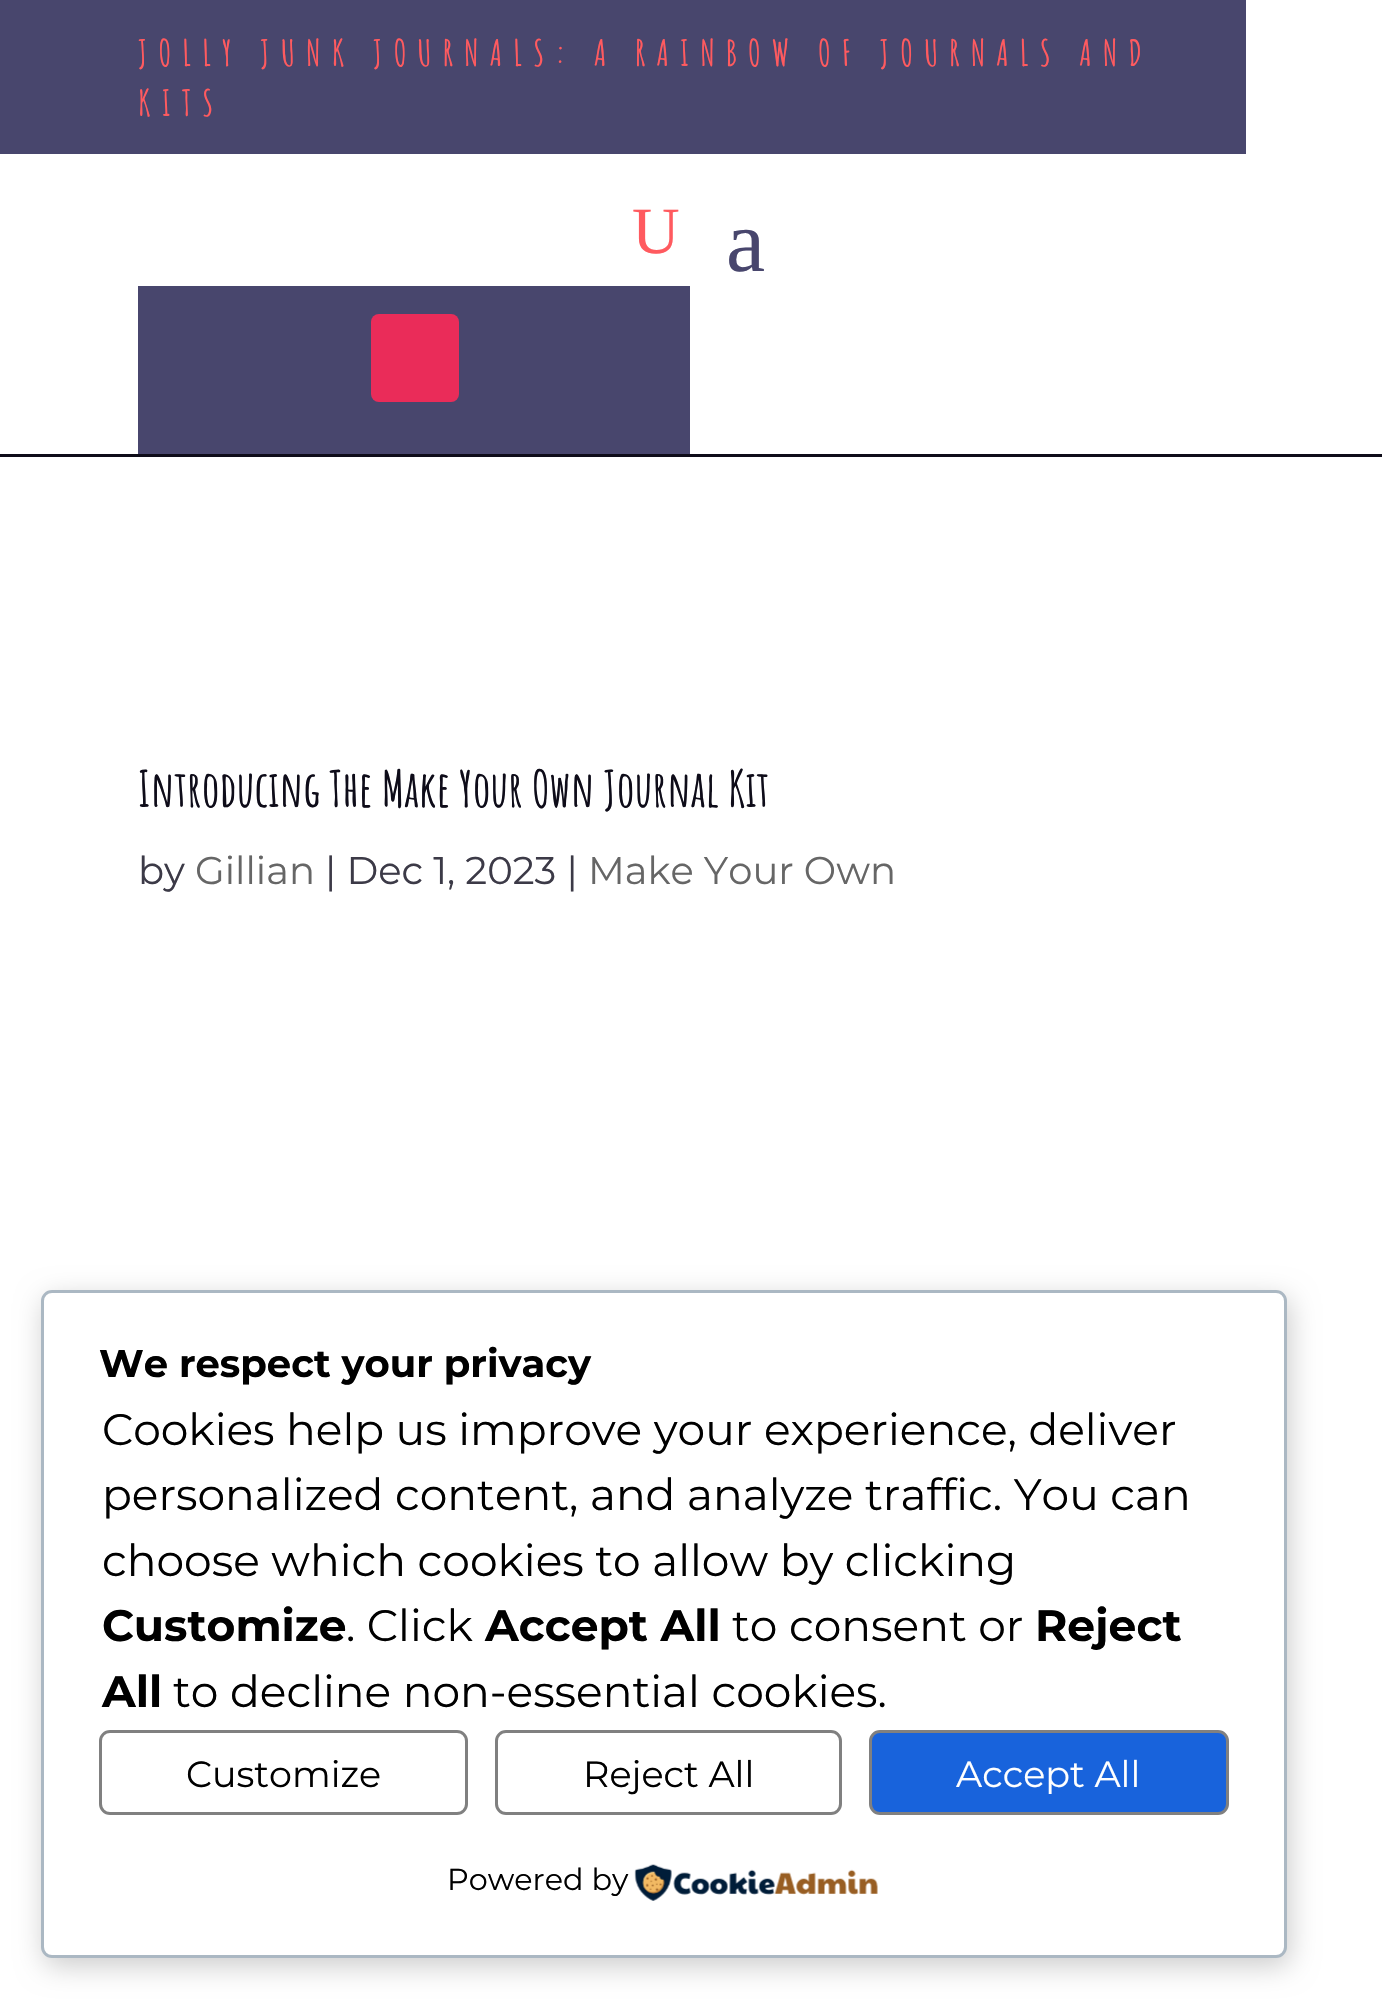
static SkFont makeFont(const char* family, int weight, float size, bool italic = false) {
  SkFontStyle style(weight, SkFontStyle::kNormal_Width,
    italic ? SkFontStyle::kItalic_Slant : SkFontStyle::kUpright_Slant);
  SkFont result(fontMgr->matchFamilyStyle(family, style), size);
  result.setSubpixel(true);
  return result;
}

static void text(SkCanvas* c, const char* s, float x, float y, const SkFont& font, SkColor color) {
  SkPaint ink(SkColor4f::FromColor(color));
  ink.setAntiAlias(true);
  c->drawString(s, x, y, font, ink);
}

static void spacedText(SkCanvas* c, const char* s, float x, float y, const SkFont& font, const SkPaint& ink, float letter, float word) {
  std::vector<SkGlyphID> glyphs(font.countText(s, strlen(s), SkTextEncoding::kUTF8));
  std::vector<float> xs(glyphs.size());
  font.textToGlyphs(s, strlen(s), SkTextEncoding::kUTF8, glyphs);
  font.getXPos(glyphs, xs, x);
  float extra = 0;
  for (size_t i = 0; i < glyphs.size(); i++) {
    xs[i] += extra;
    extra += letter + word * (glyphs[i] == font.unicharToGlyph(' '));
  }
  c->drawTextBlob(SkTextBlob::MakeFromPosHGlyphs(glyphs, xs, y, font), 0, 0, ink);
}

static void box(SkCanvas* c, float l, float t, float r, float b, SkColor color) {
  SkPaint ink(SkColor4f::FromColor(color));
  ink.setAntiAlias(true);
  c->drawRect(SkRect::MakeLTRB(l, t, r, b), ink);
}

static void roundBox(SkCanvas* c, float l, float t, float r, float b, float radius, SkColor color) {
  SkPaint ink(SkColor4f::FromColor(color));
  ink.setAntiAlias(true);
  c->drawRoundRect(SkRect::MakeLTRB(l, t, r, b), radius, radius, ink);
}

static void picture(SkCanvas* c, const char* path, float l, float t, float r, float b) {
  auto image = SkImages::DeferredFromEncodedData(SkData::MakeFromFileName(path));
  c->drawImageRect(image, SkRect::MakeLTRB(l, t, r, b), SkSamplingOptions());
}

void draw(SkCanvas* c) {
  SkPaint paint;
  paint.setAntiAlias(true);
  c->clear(0xffffffff);
  box(c, 0, 454, 1382, 457, 0xff0e0c19);
  box(c, 0, 0, 1246, 154, 0xff48466d);
  SkFont face1 = makeFont("Amatic SC", 700, 35.75f);
  paint.setColor(0xffff5a5f);
  spacedText(c, "JOLLY JUNK JOURNALS: A RAINBOW OF JOURNALS AND", 138, 66, face1, paint, 11, 0);
  spacedText(c, "KITS", 138, 116, face1, paint, 11, 0);
  SkFont face2 = makeFont("Liberation Serif", 400, 66);
  text(c, "U", 632, 253, face2, 0xffff5a5f);
  SkFont face3 = makeFont("Liberation Serif", 400, 88);
  text(c, "a", 726, 271, face3, 0xff48466d);
  box(c, 138, 286, 690, 454, 0xff48466d);
  roundBox(c, 371, 314, 459, 402, 8, 0xffea2c59);
  SkFont face4 = makeFont("Amatic SC", 700, 49.5f);
  text(c, "Introducing The Make Your Own Journal Kit", 138, 807, face4, 0xff0e0c19);
  SkFont face5 = makeFont("Montserrat", 100, 38.5f);
  text(c, "by", 138, 884, face5, 0xff3c3a47);
  text(c, "Gillian", 195, 884, face5, 0xff666666);
  text(c, "| Dec 1, 2023 |", 325, 884, face5, 0xff3c3a47);
  text(c, "Make Your Own", 588, 884, face5, 0xff666666);
  paint.setColor(0x33000000);
  paint.setMaskFilter(SkMaskFilter::MakeBlur(kNormal_SkBlurStyle, 14));
  c->drawRoundRect(SkRect::MakeLTRB(44, 1298, 1290, 1966), 11, 11, paint);
  paint.setMaskFilter(nullptr);
  paint.setColor(0xffffffff);
  c->drawRoundRect(SkRect::MakeLTRB(42.5f, 1291.5f, 1285.5f, 1956.5f), 9.5f, 9.5f, paint);
  paint.setStyle(SkPaint::kStroke_Style);
  paint.setStrokeWidth(3);
  paint.setColor(0xffabb8c3);
  c->drawRoundRect(SkRect::MakeLTRB(42.5f, 1291.5f, 1285.5f, 1956.5f), 9.5f, 9.5f, paint);
  SkFont face6 = makeFont("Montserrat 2", 100, 38.5f);
  text(c, "We respect your privacy", 99, 1377, face6, 0xff000000);
  SkFont face7 = makeFont("Montserrat", 100, 44);
  text(c, "Cookies help us improve your experience, deliver", 102, 1445, face7, 0xff000000);
  text(c, "personalized content, and analyze traffic. You can", 102, 1510, face7, 0xff000000);
  text(c, "choose which cookies to allow by clicking", 102, 1576, face7, 0xff000000);
  SkFont face8 = makeFont("Montserrat 2", 100, 44);
  text(c, "Customize", 102, 1641, face8, 0xff000000);
  text(c, ". Click", 346, 1641, face7, 0xff000000);
  text(c, "Accept All", 485, 1641, face8, 0xff000000);
  text(c, "to consent or", 732, 1641, face7, 0xff000000);
  text(c, "Reject", 1035, 1641, face8, 0xff000000);
  text(c, "All", 102, 1707, face8, 0xff000000);
  text(c, "to decline non-essential cookies.", 173, 1707, face7, 0xff000000);
  paint.setColor(0xff808080);
  c->drawRoundRect(SkRect::MakeLTRB(100.5f, 1731.5f, 466.5f, 1813.5f), 9.5f, 9.5f, paint);
  SkFont face9 = makeFont("Montserrat", 100, 36.5f);
  text(c, "Customize", 186, 1787, face9, 0xff000000);
  c->drawRoundRect(SkRect::MakeLTRB(496.5f, 1731.5f, 840.5f, 1813.5f), 9.5f, 9.5f, paint);
  text(c, "Reject All", 583, 1787, face9, 0xff000000);
  paint.setStyle(SkPaint::kFill_Style);
  paint.setColor(0xff1863dc);
  c->drawRoundRect(SkRect::MakeLTRB(870.5f, 1731.5f, 1227.5f, 1813.5f), 9.5f, 9.5f, paint);
  paint.setStyle(SkPaint::kStroke_Style);
  paint.setColor(0xff808080);
  c->drawRoundRect(SkRect::MakeLTRB(870.5f, 1731.5f, 1227.5f, 1813.5f), 9.5f, 9.5f, paint);
  text(c, "Accept All", 956, 1787, face9, 0xffffffff);
  SkFont face10 = makeFont("Montserrat", 100, 30.25f);
  text(c, "Powered by", 447, 1890, face10, 0xff000000);
  picture(c, "img_01.png", 634, 1864, 878, 1901);
}
